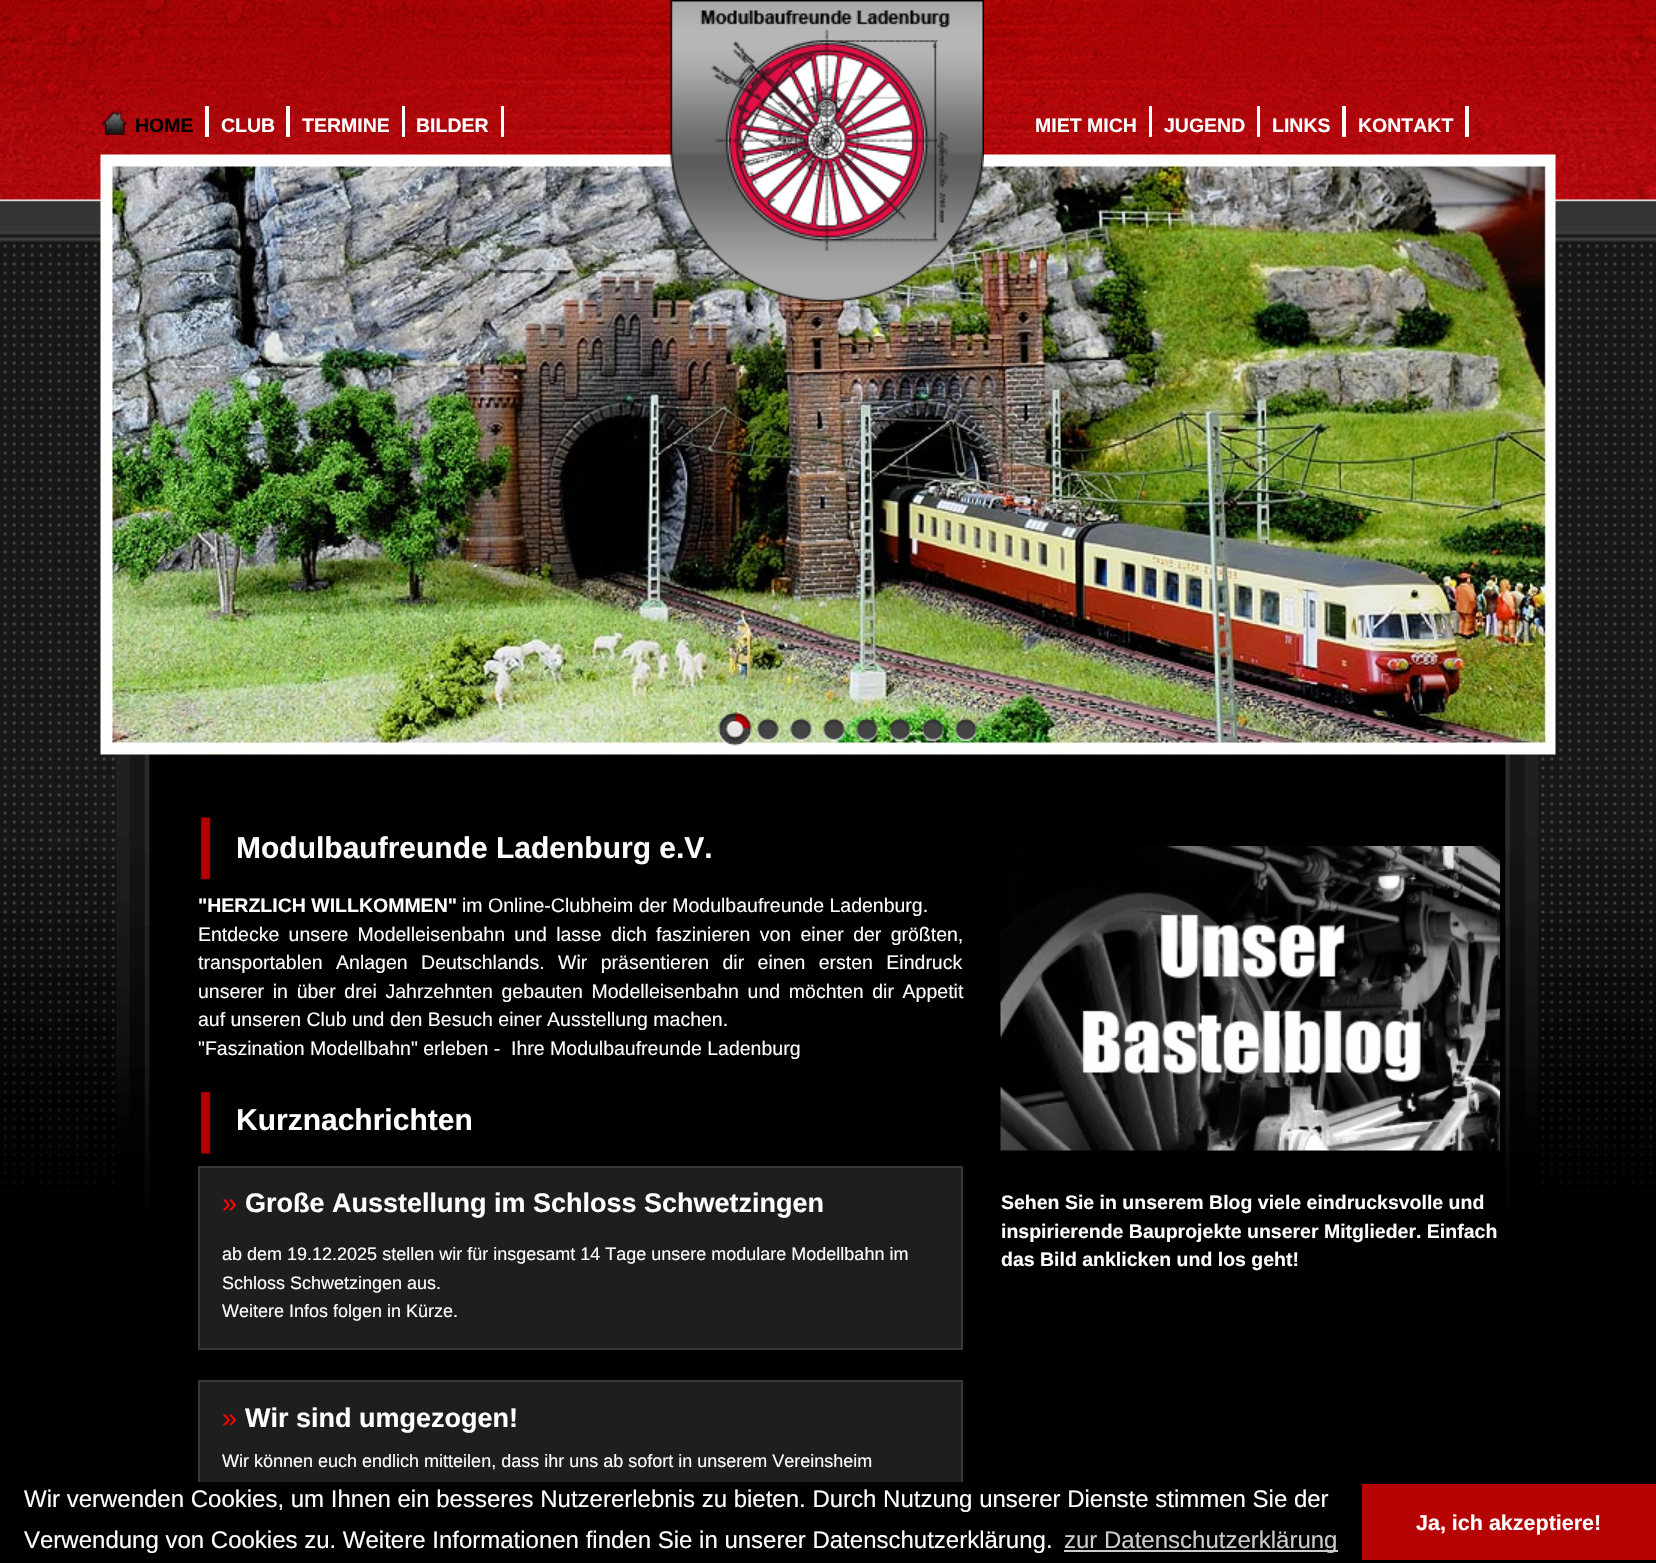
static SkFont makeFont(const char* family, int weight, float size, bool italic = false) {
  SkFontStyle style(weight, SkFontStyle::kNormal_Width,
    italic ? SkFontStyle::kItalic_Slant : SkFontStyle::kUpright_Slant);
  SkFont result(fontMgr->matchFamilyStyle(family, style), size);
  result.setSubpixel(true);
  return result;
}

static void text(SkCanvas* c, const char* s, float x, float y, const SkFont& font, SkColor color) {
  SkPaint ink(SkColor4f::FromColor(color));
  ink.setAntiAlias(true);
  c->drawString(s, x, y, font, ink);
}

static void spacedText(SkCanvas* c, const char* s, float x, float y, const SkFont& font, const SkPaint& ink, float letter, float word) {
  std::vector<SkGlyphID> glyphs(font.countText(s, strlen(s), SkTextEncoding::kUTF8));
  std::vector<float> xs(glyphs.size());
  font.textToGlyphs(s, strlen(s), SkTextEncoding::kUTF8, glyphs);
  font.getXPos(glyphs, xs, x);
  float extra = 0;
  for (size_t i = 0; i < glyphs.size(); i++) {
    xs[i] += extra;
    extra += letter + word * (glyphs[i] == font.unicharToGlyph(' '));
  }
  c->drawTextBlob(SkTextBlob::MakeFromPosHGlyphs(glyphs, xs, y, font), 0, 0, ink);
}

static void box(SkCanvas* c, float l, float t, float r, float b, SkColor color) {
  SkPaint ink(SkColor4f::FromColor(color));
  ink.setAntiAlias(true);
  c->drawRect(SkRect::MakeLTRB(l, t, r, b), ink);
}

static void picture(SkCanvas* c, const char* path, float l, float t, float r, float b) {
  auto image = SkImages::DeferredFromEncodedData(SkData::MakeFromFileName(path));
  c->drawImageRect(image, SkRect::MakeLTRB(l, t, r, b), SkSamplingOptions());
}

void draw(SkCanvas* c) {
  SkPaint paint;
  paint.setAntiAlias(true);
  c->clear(0xff000000);
  picture(c, "img_01.png", 0, 0, 1656, 1210);
  picture(c, "img_02.png", 100, 111, 128, 135);
  SkFont face1 = makeFont("Liberation Sans", 700, 19.5f);
  text(c, "HOME", 135, 132, face1, 0xff000000);
  box(c, 205, 106, 209, 137, 0xffffffff);
  text(c, "CLUB", 221, 132, face1, 0xffffffff);
  box(c, 286, 106, 290, 137, 0xffffffff);
  text(c, "TERMINE", 302, 132, face1, 0xffffffff);
  box(c, 402, 106, 405, 137, 0xffffffff);
  text(c, "BILDER", 416, 132, face1, 0xffffffff);
  box(c, 501, 106, 504, 137, 0xffffffff);
  picture(c, "img_04.png", 100, 154, 1556, 755);
  picture(c, "img_03.png", 670, 0, 984, 302);
  text(c, "MIET MICH", 1035, 132, face1, 0xffffffff);
  box(c, 1149, 106, 1152, 137, 0xffffffff);
  text(c, "JUGEND", 1164, 132, face1, 0xffffffff);
  box(c, 1257, 106, 1260, 137, 0xffffffff);
  text(c, "LINKS", 1272, 132, face1, 0xffffffff);
  box(c, 1342, 106, 1346, 137, 0xffffffff);
  text(c, "KONTAKT", 1358, 132, face1, 0xffffffff);
  box(c, 1465, 106, 1469, 137, 0xffffffff);
  picture(c, "img_05.png", 718, 712, 752, 746);
  picture(c, "img_06.png", 757, 718, 779, 742);
  picture(c, "img_07.png", 790, 718, 812, 742);
  picture(c, "img_08.png", 823, 718, 845, 742);
  picture(c, "img_09.png", 856, 718, 878, 742);
  picture(c, "img_10.png", 889, 718, 911, 742);
  picture(c, "img_11.png", 922, 718, 944, 742);
  picture(c, "img_12.png", 955, 718, 977, 742);
  picture(c, "img_14.png", 734, 712, 752, 730);
  picture(c, "img_13.png", 718, 712, 750, 746);
  picture(c, "img_15.png", 200, 817, 211, 880);
  SkFont face2 = makeFont("Liberation Sans", 700, 30);
  text(c, "Modulbaufreunde Ladenburg e.V.", 236, 858, face2, 0xffffffff);
  text(c, "\"HERZLICH WILLKOMMEN\"", 198, 912, face1, 0xffffffff);
  SkFont face3 = makeFont("Liberation Sans", 400, 19.5f);
  text(c, "im Online-Clubheim der Modulbaufreunde Ladenburg.", 462, 912, face3, 0xffffffff);
  paint.setColor(0xffffffff);
  spacedText(c, "Entdecke unsere Modelleisenbahn und lasse dich faszinieren von einer der größten,", 198, 941, face3, paint, 0, 3.9f);
  spacedText(c, "transportablen Anlagen Deutschlands. Wir präsentieren dir einen ersten Eindruck", 198, 969, face3, paint, 0, 8);
  spacedText(c, "unserer in über drei Jahrzehnten gebauten Modelleisenbahn und möchten dir Appetit", 198, 998, face3, paint, 0, 3.25f);
  text(c, "auf unseren Club und den Besuch einer Ausstellung machen.", 198, 1026, face3, 0xffffffff);
  text(c, "\"Faszination Modellbahn\" erleben -  Ihre Modulbaufreunde Ladenburg", 198, 1055, face3, 0xffffffff);
  picture(c, "img_16.png", 200, 1091, 211, 1154);
  text(c, "Kurznachrichten", 236, 1130, face2, 0xffffffff);
  paint.setColor(0xff1d1e1e);
  c->drawRect(SkRect::MakeLTRB(199, 1167, 962, 1349), paint);
  paint.setStyle(SkPaint::kStroke_Style);
  paint.setStrokeWidth(2);
  paint.setColor(0xff383838);
  c->drawRect(SkRect::MakeLTRB(199, 1167, 962, 1349), paint);
  SkFont face4 = makeFont("Liberation Sans", 400, 27);
  text(c, "»", 222, 1212, face4, 0xffff0000);
  SkFont face5 = makeFont("Liberation Sans", 700, 27);
  text(c, "Große Ausstellung im Schloss Schwetzingen", 245, 1212, face5, 0xffffffff);
  SkFont face6 = makeFont("Liberation Sans", 400, 18);
  text(c, "ab dem 19.12.2025 stellen wir für insgesamt 14 Tage unsere modulare Modellbahn im", 222, 1260, face6, 0xffffffff);
  text(c, "Schloss Schwetzingen aus.", 222, 1289, face6, 0xffffffff);
  text(c, "Weitere Infos folgen in Kürze.", 222, 1317, face6, 0xffffffff);
  box(c, 200, 1382, 961, 1482, 0xff1d1e1e);
  c->drawRect(SkRect::MakeLTRB(199, 1381, 962, 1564), paint);
  text(c, "»", 222, 1427, face4, 0xffff0000);
  text(c, "Wir sind umgezogen!", 245, 1427, face5, 0xffffffff);
  text(c, "Wir können euch endlich mitteilen, dass ihr uns ab sofort in unserem Vereinsheim", 222, 1467, face6, 0xffffffff);
  picture(c, "img_17.png", 1000, 846, 1500, 1151);
  text(c, "Sehen Sie in unserem Blog viele eindrucksvolle und", 1001, 1209, face1, 0xffffffff);
  text(c, "inspirierende Bauprojekte unserer Mitglieder. Einfach", 1001, 1238, face1, 0xffffffff);
  text(c, "das Bild anklicken und los geht!", 1001, 1266, face1, 0xffffffff);
  box(c, 198, 1482, 963, 1563, 0xff000000);
  SkFont face7 = makeFont("Liberation Sans", 400, 24);
  text(c, "Wir verwenden Cookies, um Ihnen ein besseres Nutzererlebnis zu bieten. Durch Nutzung unserer Dienste stimmen Sie der", 24, 1507, face7, 0xffffffff);
  text(c, "Verwendung von Cookies zu. Weitere Informationen finden Sie in unserer Datenschutzerklärung.", 24, 1548, face7, 0xffffffff);
  box(c, 1064, 1550, 1338, 1552, 0xffcccccc);
  text(c, "zur Datenschutzerklärung", 1064, 1548, face7, 0xffcccccc);
  box(c, 1362, 1484, 1656, 1560, 0xffb60404);
  SkFont face8 = makeFont("Liberation Sans", 700, 21.5f);
  text(c, "Ja, ich akzeptiere!", 1416, 1530, face8, 0xffffffff);
}
